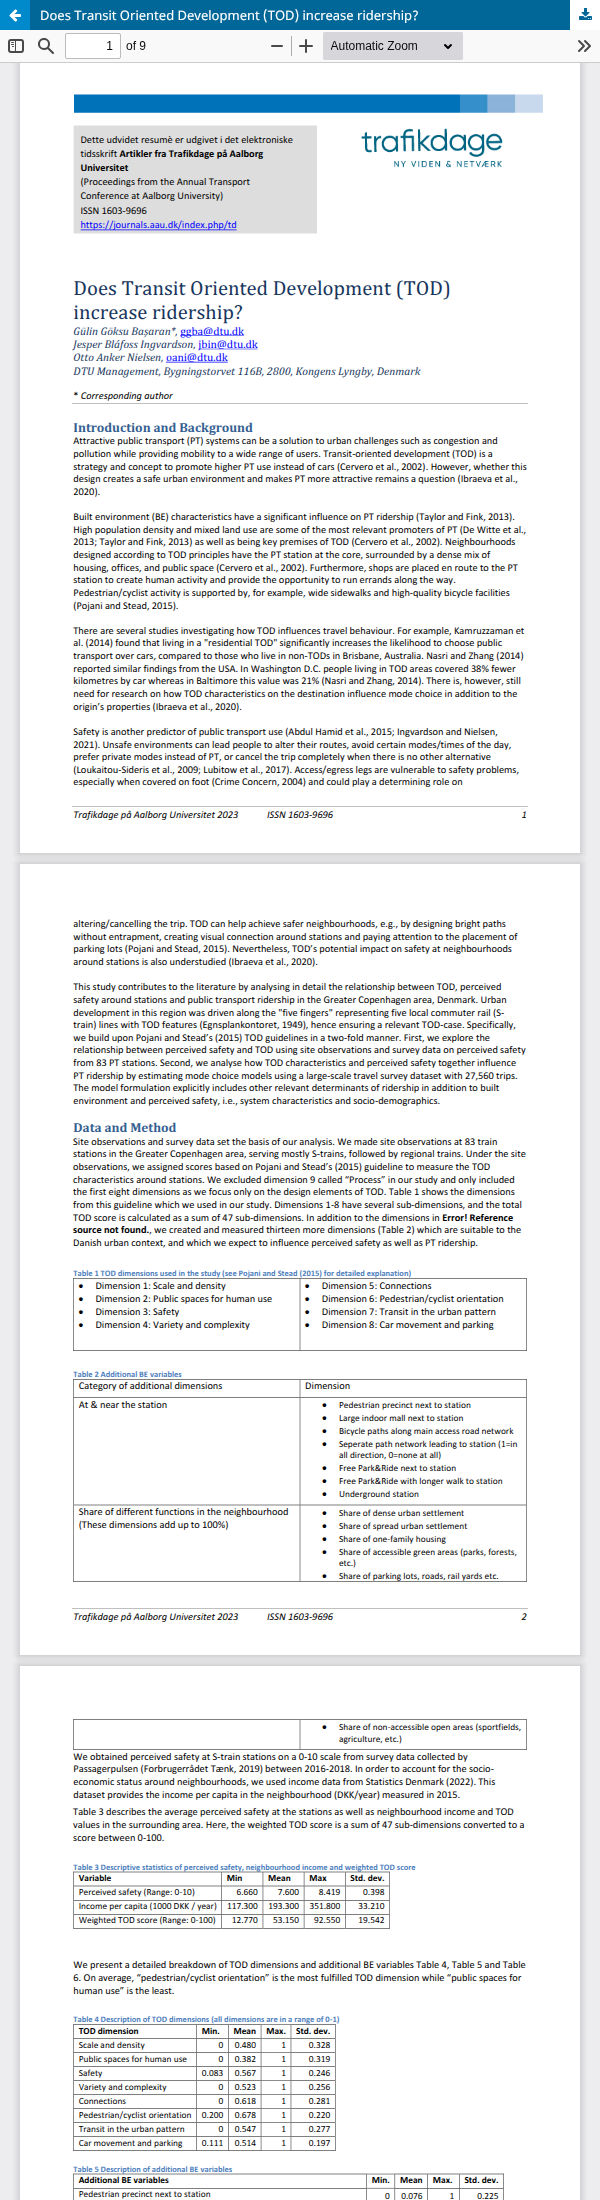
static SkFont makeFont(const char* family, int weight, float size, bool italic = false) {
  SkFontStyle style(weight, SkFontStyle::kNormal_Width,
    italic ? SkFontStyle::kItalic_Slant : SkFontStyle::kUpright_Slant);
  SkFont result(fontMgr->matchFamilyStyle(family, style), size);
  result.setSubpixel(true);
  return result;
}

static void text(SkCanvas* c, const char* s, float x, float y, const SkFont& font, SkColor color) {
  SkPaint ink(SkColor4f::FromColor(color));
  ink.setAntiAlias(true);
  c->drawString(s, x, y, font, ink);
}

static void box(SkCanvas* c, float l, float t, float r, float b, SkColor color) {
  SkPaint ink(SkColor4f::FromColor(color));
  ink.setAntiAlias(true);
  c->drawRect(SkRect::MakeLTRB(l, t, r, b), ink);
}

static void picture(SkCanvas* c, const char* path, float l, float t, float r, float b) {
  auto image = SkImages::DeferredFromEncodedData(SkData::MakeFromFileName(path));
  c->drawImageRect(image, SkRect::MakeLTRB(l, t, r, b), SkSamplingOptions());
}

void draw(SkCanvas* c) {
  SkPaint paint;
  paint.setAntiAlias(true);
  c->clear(0xffffffff);
  box(c, 30, 0, 570, 30, 0xff006798);
  box(c, 0, 0, 30, 30, 0xff008acb);
  picture(c, "img_01.png", 9, 9, 21, 22);
  SkFont face1 = makeFont("Noto Sans", 400, 13);
  text(c, "Does Transit Oriented Development (TOD) increase ridership?", 40, 20, face1, 0xffffffff);
  picture(c, "img_02.png", 579, 8, 592, 20);
  picture(c, "img_03.png", 0, 30, 600, 2200);
}
